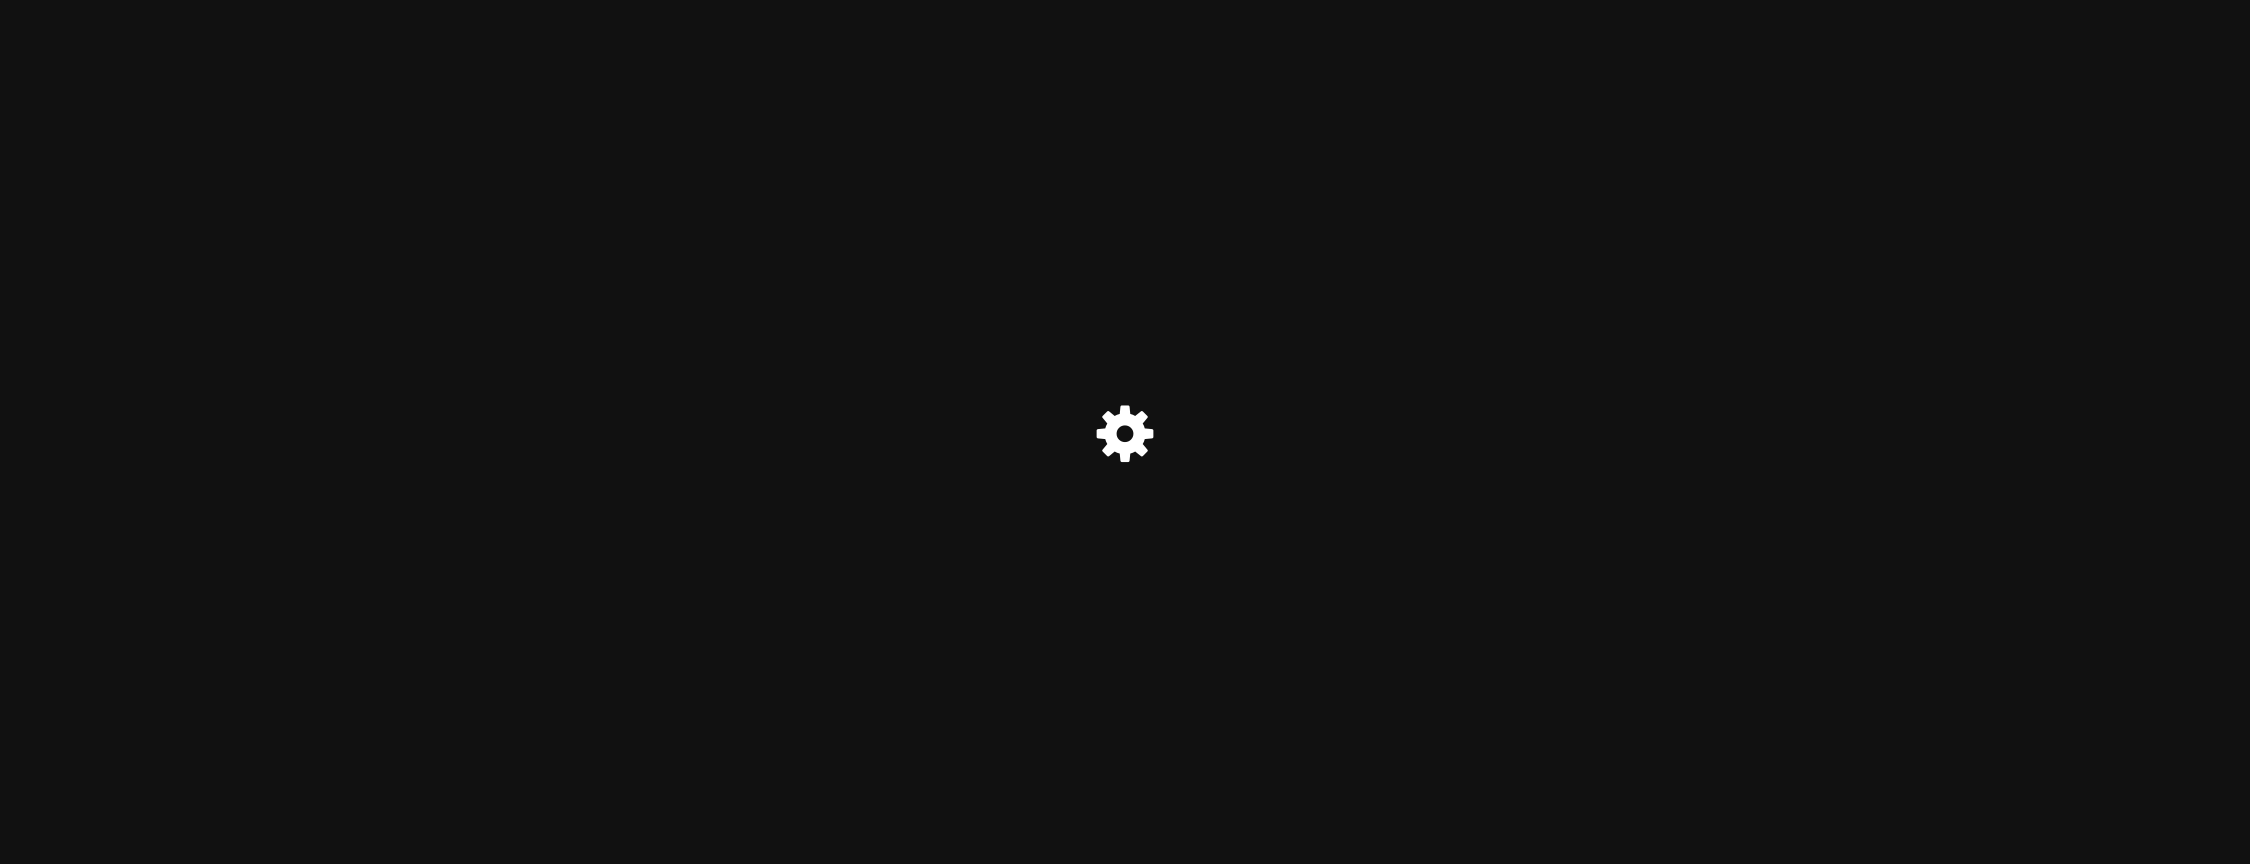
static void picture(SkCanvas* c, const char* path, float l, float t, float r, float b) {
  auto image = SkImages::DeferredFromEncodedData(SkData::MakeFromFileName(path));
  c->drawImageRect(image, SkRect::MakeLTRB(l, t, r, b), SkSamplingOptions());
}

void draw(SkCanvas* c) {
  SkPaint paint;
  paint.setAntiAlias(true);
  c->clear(0xff111111);
  picture(c, "img_01.png", 1096, 405, 1154, 463);
}
